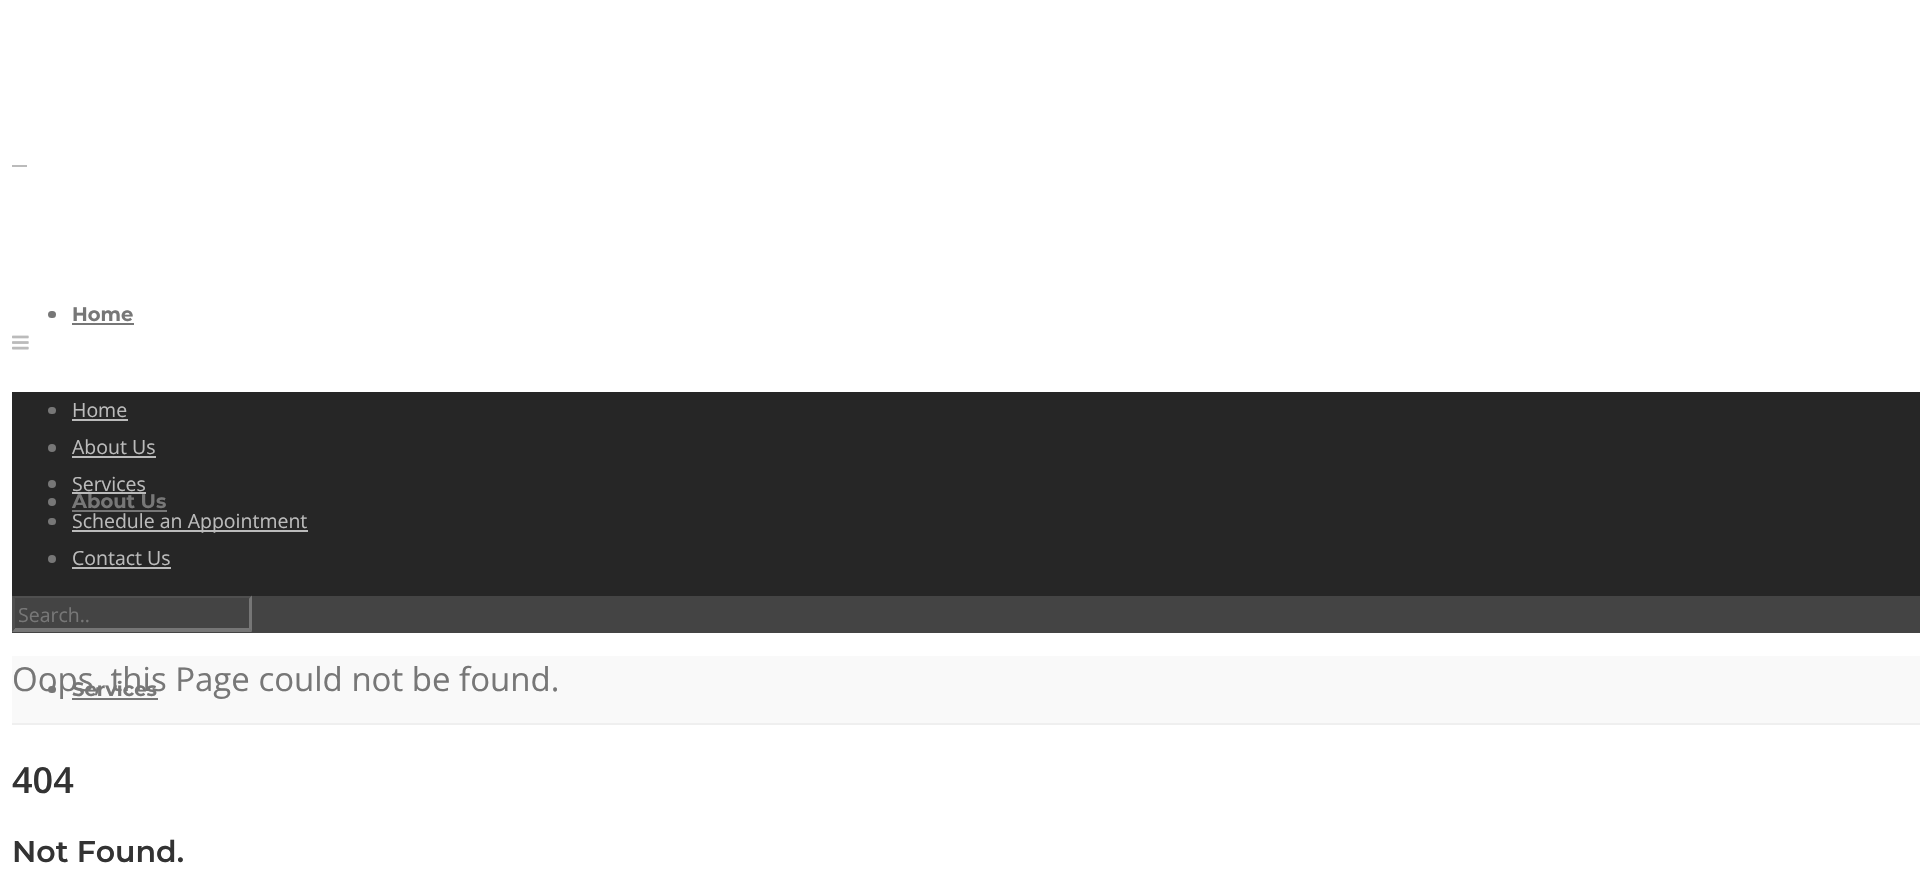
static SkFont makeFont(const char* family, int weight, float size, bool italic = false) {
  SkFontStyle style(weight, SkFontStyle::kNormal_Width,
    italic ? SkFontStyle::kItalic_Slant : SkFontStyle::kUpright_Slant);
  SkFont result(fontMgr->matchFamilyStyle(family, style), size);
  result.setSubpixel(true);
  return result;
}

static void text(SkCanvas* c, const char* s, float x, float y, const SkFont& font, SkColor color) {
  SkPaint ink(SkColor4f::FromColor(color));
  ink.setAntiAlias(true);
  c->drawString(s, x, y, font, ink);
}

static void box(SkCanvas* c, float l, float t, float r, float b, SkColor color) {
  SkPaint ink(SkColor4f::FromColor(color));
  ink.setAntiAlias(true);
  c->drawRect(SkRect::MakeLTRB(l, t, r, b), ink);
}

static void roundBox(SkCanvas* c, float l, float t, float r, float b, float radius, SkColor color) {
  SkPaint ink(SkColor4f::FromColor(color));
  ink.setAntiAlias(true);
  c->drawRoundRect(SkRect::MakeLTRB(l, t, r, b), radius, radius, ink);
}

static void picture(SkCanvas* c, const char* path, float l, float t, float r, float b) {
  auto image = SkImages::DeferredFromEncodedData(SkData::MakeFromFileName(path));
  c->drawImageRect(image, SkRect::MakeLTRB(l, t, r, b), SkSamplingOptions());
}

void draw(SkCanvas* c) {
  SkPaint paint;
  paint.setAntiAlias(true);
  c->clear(0xffffffff);
  picture(c, "img_01.png", 12, 335, 29, 350);
  box(c, 12, 165, 27, 167, 0xffbbbbbb);
  roundBox(c, 48, 311, 56, 318, 3.5f, 0xff777777);
  SkFont face1 = makeFont("Montserrat", 700, 19.5f);
  text(c, "Home", 72, 321, face1, 0xff777777);
  box(c, 72, 323, 134, 325, 0xff777777);
  box(c, 12, 392, 1920, 596, 0xff262626);
  paint.setColor(0xff777777);
  c->drawCircle(52, 502, 4, paint);
  text(c, "About Us", 72, 508, face1, 0xff777777);
  box(c, 72, 510, 167, 512, 0xff777777);
  box(c, 12, 656, 1920, 723, 0xfff9f9f9);
  roundBox(c, 48, 686, 56, 693, 3.5f, 0xff777777);
  text(c, "Services", 72, 696, face1, 0xff777777);
  box(c, 72, 698, 158, 700, 0xff777777);
  roundBox(c, 48, 407, 56, 414, 3.5f, 0xff777777);
  SkFont face2 = makeFont("Open Sans", 400, 19.5f);
  text(c, "Home", 72, 417, face2, 0xffbbbbbb);
  box(c, 72, 419, 128, 421, 0xffbbbbbb);
  c->drawCircle(52, 448, 4, paint);
  text(c, "About Us", 72, 454, face2, 0xffbbbbbb);
  box(c, 72, 456, 156, 458, 0xffbbbbbb);
  c->drawCircle(52, 484, 4, paint);
  text(c, "Services", 72, 491, face2, 0xffbbbbbb);
  box(c, 72, 492, 146, 494, 0xffbbbbbb);
  roundBox(c, 48, 518, 56, 525, 3.5f, 0xff777777);
  box(c, 72, 530, 308, 532, 0xffbbbbbb);
  text(c, "Schedule an Appointment", 72, 528, face2, 0xffbbbbbb);
  c->drawCircle(52, 559, 4, paint);
  text(c, "Contact Us", 72, 565, face2, 0xffbbbbbb);
  box(c, 72, 567, 171, 569, 0xffbbbbbb);
  box(c, 12, 596, 1920, 633, 0xff444444);
  paint.setColor(0xff4f4f4f);
  c->drawPath(SkPathBuilder().moveTo(12, 596).lineTo(252, 596).lineTo(249, 598).lineTo(15, 598).close().detach(), paint);
  paint.setColor(0xff767676);
  c->drawPath(SkPathBuilder().moveTo(252, 595.5f).lineTo(252, 631.5f).lineTo(249, 628.5f).lineTo(249, 598.5f).close().detach(), paint);
  c->drawPath(SkPathBuilder().moveTo(252, 632).lineTo(12, 632).lineTo(15, 628).lineTo(249, 628).close().detach(), paint);
  paint.setColor(0xff4f4f4f);
  c->drawPath(SkPathBuilder().moveTo(12, 631.5f).lineTo(12, 595.5f).lineTo(15, 598.5f).lineTo(15, 628.5f).close().detach(), paint);
  text(c, "Search..", 18, 622, face2, 0xff777777);
  box(c, 12, 723, 1920, 725, 0xffefefef);
  SkFont face3 = makeFont("Open Sans", 400, 33);
  text(c, "Oops, this Page could not be found.", 12, 691, face3, 0xff777777);
  SkFont face4 = makeFont("Open Sans", 600, 36);
  text(c, "404", 12, 793, face4, 0xff333333);
  SkFont face5 = makeFont("Montserrat", 600, 30);
  text(c, "Not Found.", 12, 862, face5, 0xff333333);
}
